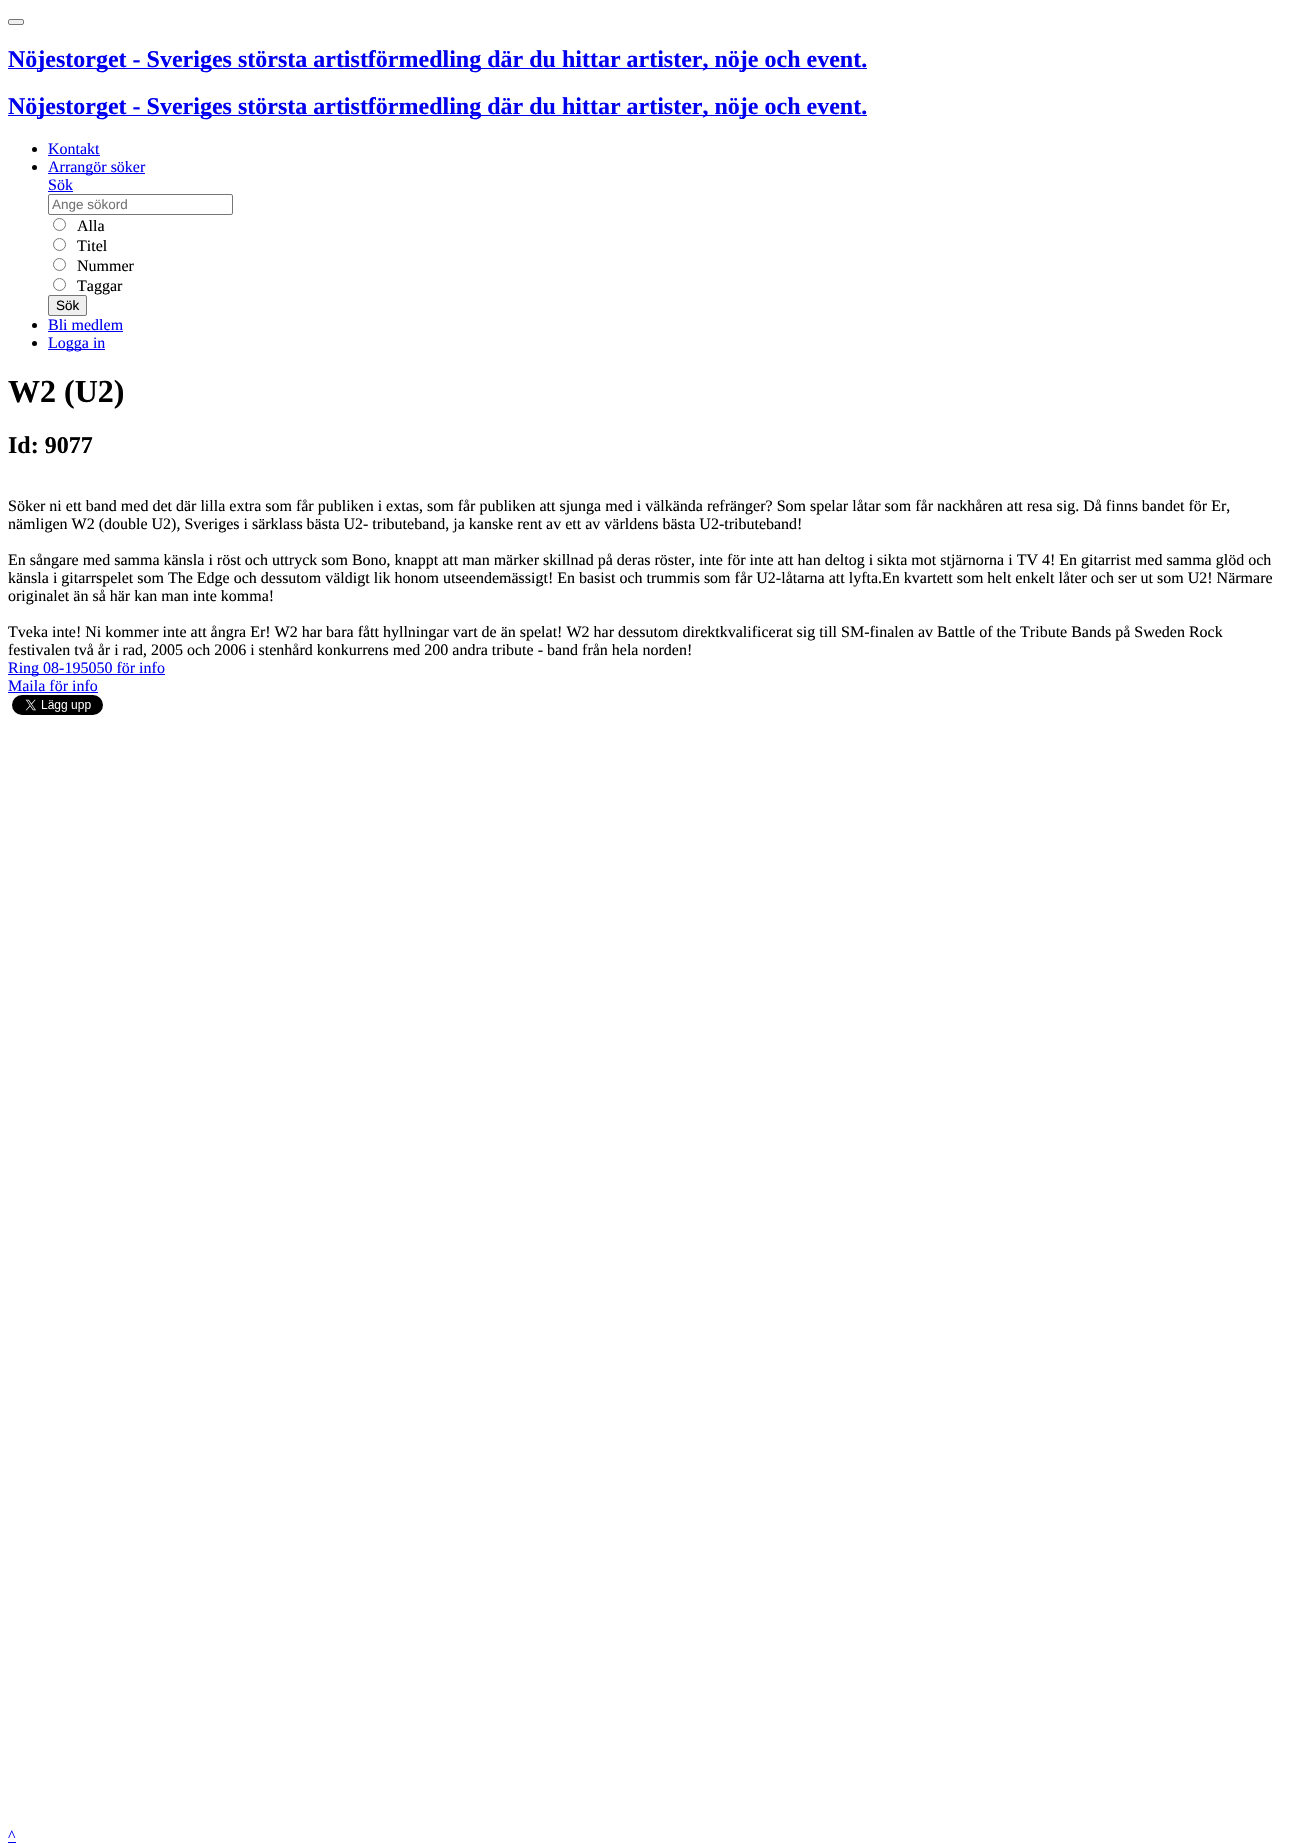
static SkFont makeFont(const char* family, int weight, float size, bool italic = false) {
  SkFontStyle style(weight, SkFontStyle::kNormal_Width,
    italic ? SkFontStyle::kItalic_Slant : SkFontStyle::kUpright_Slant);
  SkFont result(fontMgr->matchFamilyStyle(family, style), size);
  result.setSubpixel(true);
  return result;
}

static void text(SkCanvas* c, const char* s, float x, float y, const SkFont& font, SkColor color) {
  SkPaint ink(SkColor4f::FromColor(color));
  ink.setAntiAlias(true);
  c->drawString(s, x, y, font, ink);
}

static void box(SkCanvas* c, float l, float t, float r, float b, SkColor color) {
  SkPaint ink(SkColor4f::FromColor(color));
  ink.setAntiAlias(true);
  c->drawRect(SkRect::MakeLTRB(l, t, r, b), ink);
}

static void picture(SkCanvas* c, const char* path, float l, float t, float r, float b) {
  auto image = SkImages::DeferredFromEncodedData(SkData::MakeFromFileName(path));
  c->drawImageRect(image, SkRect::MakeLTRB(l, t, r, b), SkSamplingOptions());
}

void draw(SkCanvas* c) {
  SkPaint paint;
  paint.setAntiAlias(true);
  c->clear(0xffffffff);
  paint.setColor(0xffefefef);
  c->drawRoundRect(SkRect::MakeLTRB(8.5f, 19.5f, 23.5f, 24.5f), 1.5f, 1.5f, paint);
  paint.setStyle(SkPaint::kStroke_Style);
  paint.setStrokeWidth(1);
  paint.setColor(0xff767676);
  c->drawRoundRect(SkRect::MakeLTRB(8.5f, 19.5f, 23.5f, 24.5f), 1.5f, 1.5f, paint);
  box(c, 8, 68, 867, 69, 0xff0000ee);
  SkFont face1 = makeFont("Liberation Serif", 700, 24);
  text(c, "Nöjestorget - Sveriges största artistförmedling där du hittar artister, nöje och event.", 8, 67, face1, 0xff0000ee);
  box(c, 8, 115, 867, 116, 0xff0000ee);
  text(c, "Nöjestorget - Sveriges största artistförmedling där du hittar artister, nöje och event.", 8, 114, face1, 0xff0000ee);
  paint.setStyle(SkPaint::kFill_Style);
  paint.setColor(0xff000000);
  c->drawCircle(34.5f, 149.5f, 2.5f, paint);
  SkFont face2 = makeFont("Liberation Serif", 400, 16);
  text(c, "Kontakt", 48, 154, face2, 0xff0000ee);
  box(c, 48, 155, 100, 156, 0xff0000ee);
  c->drawCircle(34.5f, 167.5f, 2.5f, paint);
  box(c, 48, 173, 145, 174, 0xff0000ee);
  text(c, "Arrangör söker", 48, 172, face2, 0xff0000ee);
  text(c, "Sök", 48, 190, face2, 0xff0000ee);
  box(c, 48, 191, 73, 192, 0xff0000ee);
  paint.setStyle(SkPaint::kStroke_Style);
  paint.setColor(0xff767676);
  c->drawRoundRect(SkRect::MakeLTRB(48.5f, 194.5f, 232.5f, 214.5f), 1.5f, 1.5f, paint);
  SkFont face3 = makeFont("Liberation Sans", 400, 13.5f);
  text(c, "Ange sökord", 52, 209, face3, 0xff757575);
  c->drawCircle(59.5f, 224.5f, 6, paint);
  text(c, "Alla", 77, 231, face2, 0xff000000);
  c->drawCircle(59.5f, 244.5f, 6, paint);
  text(c, "Titel", 77, 251, face2, 0xff000000);
  c->drawCircle(59.5f, 264.5f, 6, paint);
  text(c, "Nummer", 77, 271, face2, 0xff000000);
  c->drawCircle(59.5f, 284.5f, 6, paint);
  text(c, "Taggar", 77, 291, face2, 0xff000000);
  paint.setStyle(SkPaint::kFill_Style);
  paint.setColor(0xffefefef);
  c->drawRoundRect(SkRect::MakeLTRB(48.5f, 295.5f, 86.5f, 315.5f), 1.5f, 1.5f, paint);
  paint.setStyle(SkPaint::kStroke_Style);
  paint.setColor(0xff767676);
  c->drawRoundRect(SkRect::MakeLTRB(48.5f, 295.5f, 86.5f, 315.5f), 1.5f, 1.5f, paint);
  text(c, "Sök", 56, 310, face3, 0xff000000);
  paint.setStyle(SkPaint::kFill_Style);
  paint.setColor(0xff000000);
  c->drawCircle(34.5f, 325.5f, 2.5f, paint);
  text(c, "Bli medlem", 48, 330, face2, 0xff0000ee);
  box(c, 48, 331, 123, 332, 0xff0000ee);
  c->drawCircle(34.5f, 343.5f, 2.5f, paint);
  box(c, 48, 349, 105, 350, 0xff0000ee);
  text(c, "Logga in", 48, 348, face2, 0xff0000ee);
  SkFont face4 = makeFont("Liberation Serif", 700, 32);
  text(c, "W2 (U2)", 8, 402, face4, 0xff000000);
  text(c, "Id: 9077", 8, 453, face1, 0xff000000);
  text(c, "Söker ni ett band med det där lilla extra som får publiken i extas, som får publiken att sjunga med i välkända refränger? Som spelar låtar som får nackhåren att resa sig. Då finns bandet för Er,", 8, 511, face2, 0xff000000);
  text(c, "nämligen W2 (double U2), Sveriges i särklass bästa U2- tributeband, ja kanske rent av ett av världens bästa U2-tributeband!", 8, 529, face2, 0xff000000);
  text(c, "En sångare med samma känsla i röst och uttryck som Bono, knappt att man märker skillnad på deras röster, inte för inte att han deltog i sikta mot stjärnorna i TV 4! En gitarrist med samma glöd och", 8, 565, face2, 0xff000000);
  text(c, "känsla i gitarrspelet som The Edge och dessutom väldigt lik honom utseendemässigt! En basist och trummis som får U2-låtarna att lyfta.En kvartett som helt enkelt låter och ser ut som U2! Närmare", 8, 583, face2, 0xff000000);
  text(c, "originalet än så här kan man inte komma!", 8, 601, face2, 0xff000000);
  text(c, "Tveka inte! Ni kommer inte att ångra Er! W2 har bara fått hyllningar vart de än spelat! W2 har dessutom direktkvalificerat sig till SM-finalen av Battle of the Tribute Bands på Sweden Rock", 8, 637, face2, 0xff000000);
  text(c, "festivalen två år i rad, 2005 och 2006 i stenhård konkurrens med 200 andra tribute - band från hela norden!", 8, 655, face2, 0xff000000);
  box(c, 8, 674, 165, 675, 0xff0000ee);
  text(c, "Ring 08-195050 för info", 8, 673, face2, 0xff0000ee);
  text(c, "Maila för info", 8, 691, face2, 0xff0000ee);
  box(c, 8, 692, 98, 693, 0xff0000ee);
  picture(c, "img_01.png", 12, 695, 103, 715);
  text(c, "^", 8, 1841, face2, 0xff0000ee);
  box(c, 8, 1842, 16, 1843, 0xff0000ee);
}
